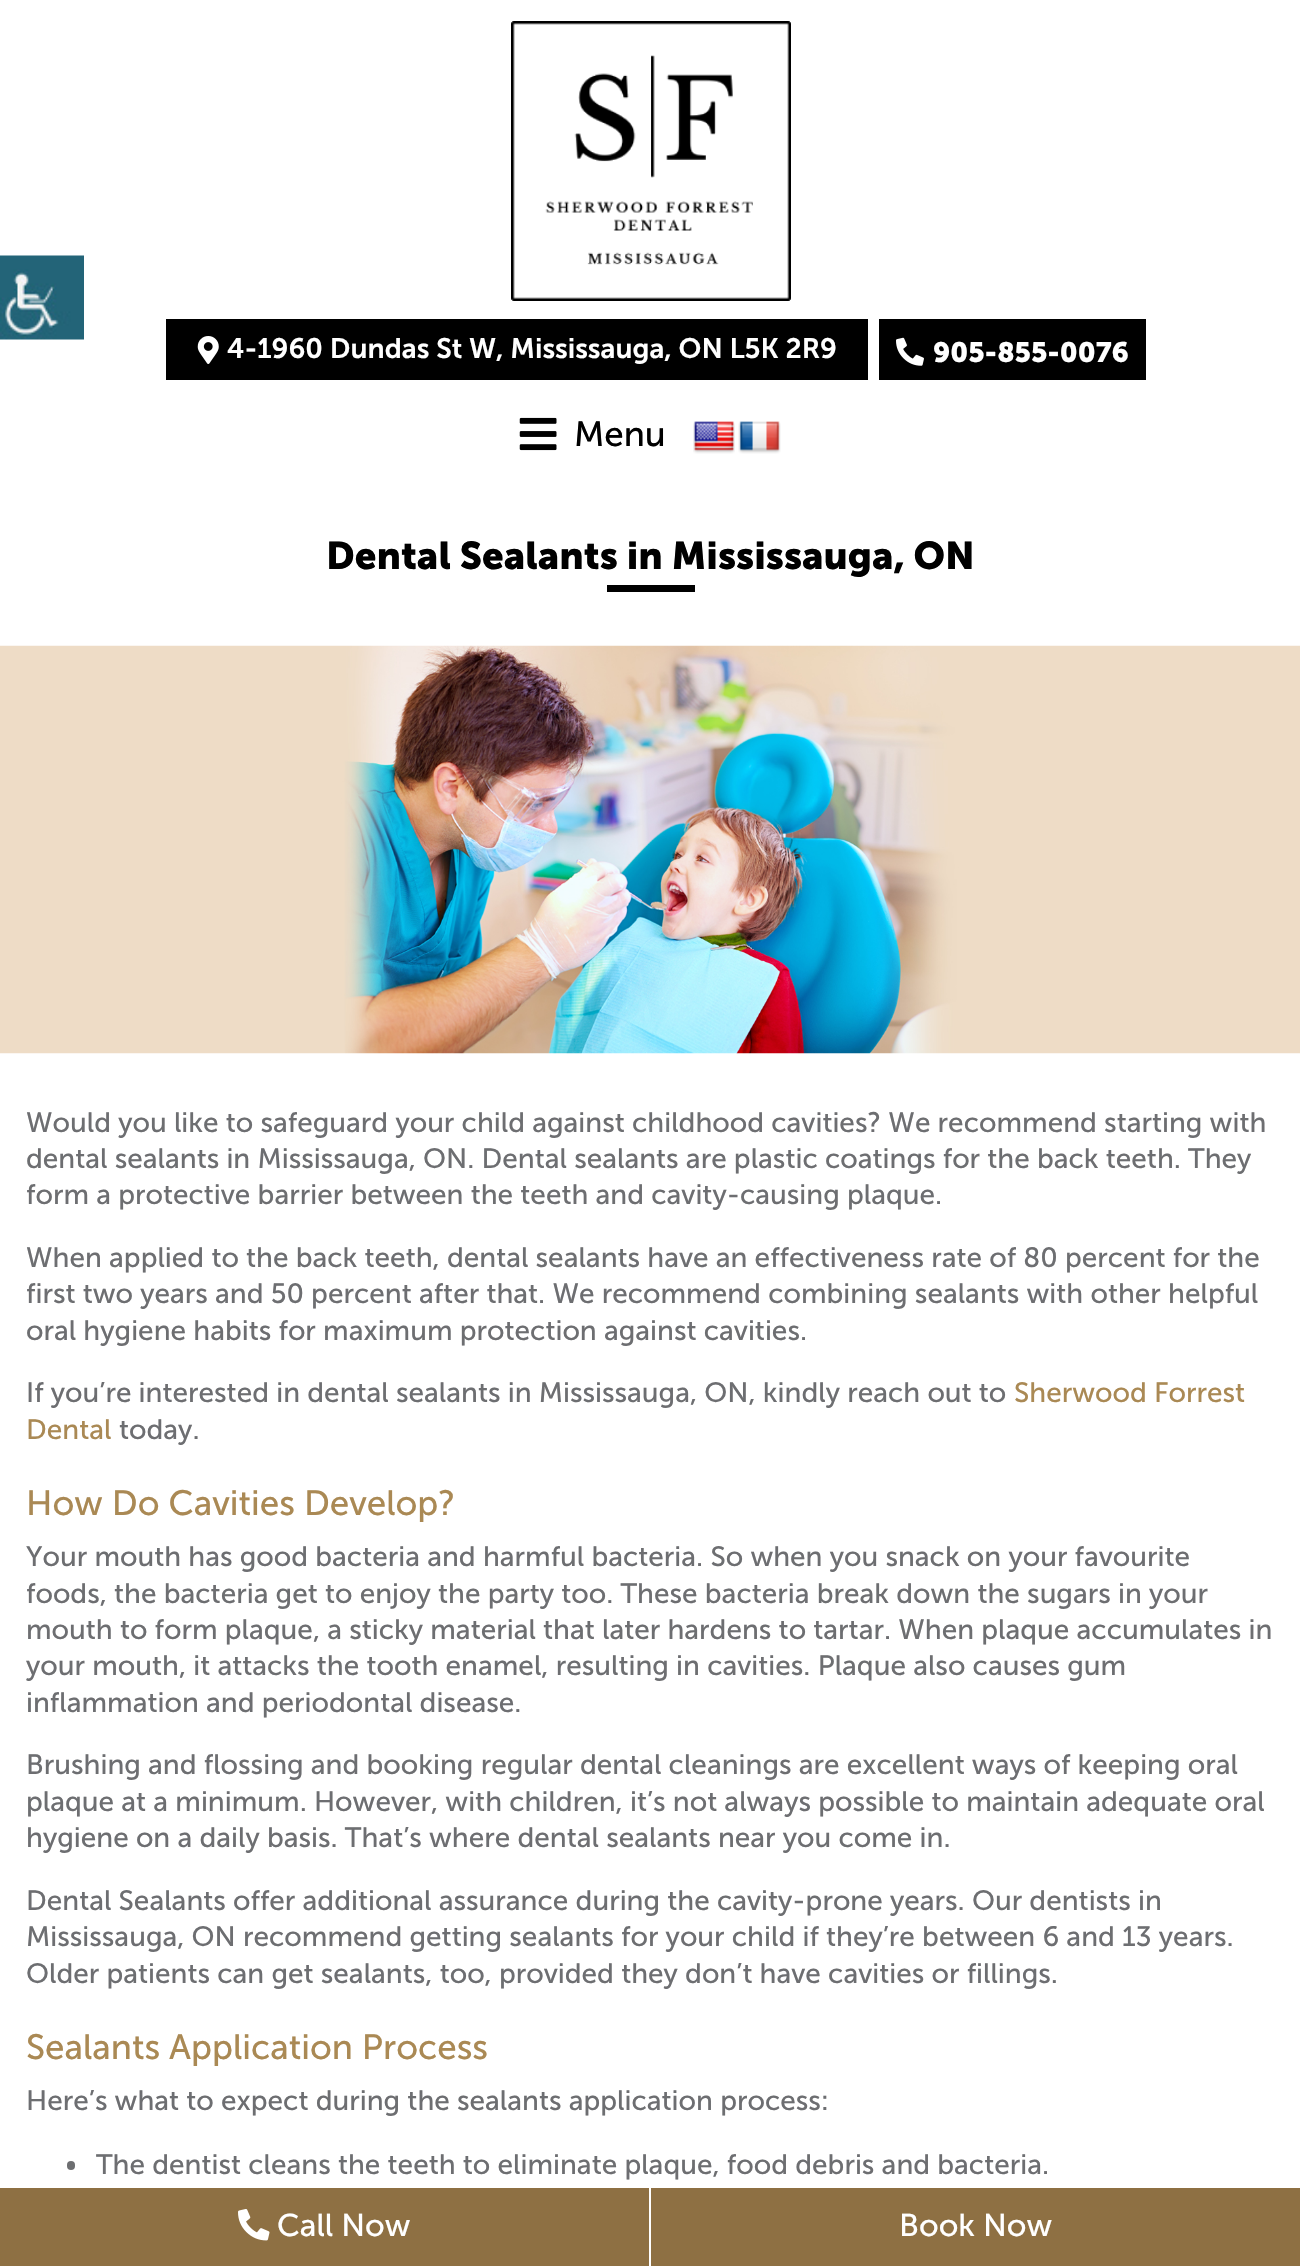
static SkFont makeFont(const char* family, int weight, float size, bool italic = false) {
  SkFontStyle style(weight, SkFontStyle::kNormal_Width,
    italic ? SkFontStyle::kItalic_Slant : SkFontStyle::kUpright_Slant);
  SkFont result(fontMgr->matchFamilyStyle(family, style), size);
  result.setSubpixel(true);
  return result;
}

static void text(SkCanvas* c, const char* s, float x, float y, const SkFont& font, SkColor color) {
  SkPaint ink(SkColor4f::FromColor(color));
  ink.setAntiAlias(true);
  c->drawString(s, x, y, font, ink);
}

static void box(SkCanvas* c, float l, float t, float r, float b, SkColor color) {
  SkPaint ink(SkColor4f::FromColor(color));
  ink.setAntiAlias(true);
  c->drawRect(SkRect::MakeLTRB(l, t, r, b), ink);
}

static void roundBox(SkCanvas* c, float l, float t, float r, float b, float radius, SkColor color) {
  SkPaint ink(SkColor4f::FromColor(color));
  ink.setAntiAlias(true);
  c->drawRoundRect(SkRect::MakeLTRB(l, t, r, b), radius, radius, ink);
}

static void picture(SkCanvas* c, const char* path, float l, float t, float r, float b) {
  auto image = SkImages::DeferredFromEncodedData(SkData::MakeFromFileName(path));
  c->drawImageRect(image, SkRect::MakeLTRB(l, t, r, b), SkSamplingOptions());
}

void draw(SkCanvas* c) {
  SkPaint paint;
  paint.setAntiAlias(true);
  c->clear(0xffffffff);
  picture(c, "img_01.png", 0, 255, 84, 340);
  picture(c, "img_02.png", 511, 21, 791, 301);
  box(c, 166, 319, 868, 380, 0xff000000);
  picture(c, "img_03.png", 197, 336, 219, 364);
  SkFont face1 = makeFont("Museo Sans", 600, 28);
  text(c, "4-1960 Dundas St W, Mississauga, ON L5K 2R9", 227, 358, face1, 0xffffffff);
  box(c, 879, 319, 1146, 380, 0xff000000);
  picture(c, "img_04.png", 896, 337, 924, 366);
  SkFont face2 = makeFont("Museo Sans", 700, 28);
  text(c, "905-855-0076", 933, 362, face2, 0xffffffff);
  picture(c, "img_05.png", 519, 417, 557, 451);
  SkFont face3 = makeFont("Museo Sans", 400, 35);
  text(c, "Menu", 574, 446, face3, 0xff000000);
  picture(c, "img_06.png", 693, 421, 735, 454);
  picture(c, "img_07.png", 738, 421, 781, 454);
  SkFont face4 = makeFont("Museo Sans", 700, 38.5f);
  text(c, "Dental Sealants in Mississauga, ON", 326, 569, face4, 0xff000000);
  box(c, 607, 585, 695, 592, 0xff000000);
  picture(c, "img_08.png", 0, 645, 1300, 1054);
  SkFont face5 = makeFont("Museo Sans", 400, 28);
  text(c, "Would you like to safeguard your child against childhood cavities? We recommend starting with", 26, 1132, face5, 0xff6d6e71);
  text(c, "dental sealants in Mississauga, ON. Dental sealants are plastic coatings for the back teeth. They", 26, 1168, face5, 0xff6d6e71);
  text(c, "form a protective barrier between the teeth and cavity-causing plaque.", 26, 1204, face5, 0xff6d6e71);
  text(c, "When applied to the back teeth, dental sealants have an effectiveness rate of 80 percent for the", 26, 1267, face5, 0xff6d6e71);
  text(c, "first two years and 50 percent after that. We recommend combining sealants with other helpful", 26, 1303, face5, 0xff6d6e71);
  text(c, "oral hygiene habits for maximum protection against cavities.", 26, 1340, face5, 0xff6d6e71);
  text(c, "If you’re interested in dental sealants in Mississauga, ON, kindly reach out to", 26, 1402, face5, 0xff6d6e71);
  text(c, "Sherwood Forrest", 1014, 1402, face5, 0xffaa8954);
  text(c, "Dental", 26, 1439, face5, 0xffaa8954);
  text(c, "today.", 119, 1439, face5, 0xff6d6e71);
  text(c, "How Do Cavities Develop?", 26, 1515, face3, 0xffaa8954);
  text(c, "Your mouth has good bacteria and harmful bacteria. So when you snack on your favourite", 26, 1566, face5, 0xff6d6e71);
  text(c, "foods, the bacteria get to enjoy the party too. These bacteria break down the sugars in your", 26, 1603, face5, 0xff6d6e71);
  text(c, "mouth to form plaque, a sticky material that later hardens to tartar. When plaque accumulates in", 26, 1639, face5, 0xff6d6e71);
  text(c, "your mouth, it attacks the tooth enamel, resulting in cavities. Plaque also causes gum", 26, 1675, face5, 0xff6d6e71);
  text(c, "inflammation and periodontal disease.", 26, 1712, face5, 0xff6d6e71);
  text(c, "Brushing and flossing and booking regular dental cleanings are excellent ways of keeping oral", 26, 1774, face5, 0xff6d6e71);
  text(c, "plaque at a minimum. However, with children, it’s not always possible to maintain adequate oral", 26, 1811, face5, 0xff6d6e71);
  text(c, "hygiene on a daily basis. That’s where dental sealants near you come in.", 26, 1847, face5, 0xff6d6e71);
  text(c, "Dental Sealants offer additional assurance during the cavity-prone years. Our dentists in", 26, 1910, face5, 0xff6d6e71);
  text(c, "Mississauga, ON recommend getting sealants for your child if they’re between 6 and 13 years.", 26, 1946, face5, 0xff6d6e71);
  text(c, "Older patients can get sealants, too, provided they don’t have cavities or fillings.", 26, 1983, face5, 0xff6d6e71);
  text(c, "Sealants Application Process", 26, 2059, face3, 0xffaa8954);
  text(c, "Here’s what to expect during the sealants application process:", 26, 2110, face5, 0xff6d6e71);
  roundBox(c, 67, 2161, 75, 2170, 4, 0xff6d6e71);
  text(c, "The dentist cleans the teeth to eliminate plaque, food debris and bacteria.", 96, 2174, face5, 0xff6d6e71);
  box(c, 0, 2188, 649, 2266, 0xff8e7043);
  picture(c, "img_09.png", 238, 2209, 270, 2241);
  SkFont face6 = makeFont("Museo Sans", 400, 31.5f);
  text(c, "Call Now", 277, 2236, face6, 0xffffffff);
  box(c, 651, 2188, 1300, 2266, 0xff8e7043);
  text(c, "Book Now", 899, 2236, face6, 0xffffffff);
}
